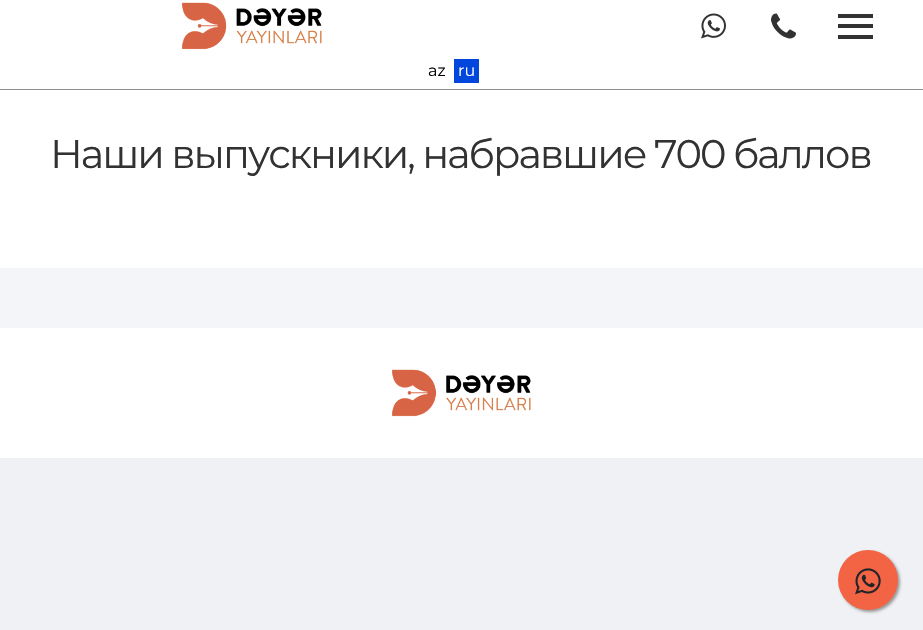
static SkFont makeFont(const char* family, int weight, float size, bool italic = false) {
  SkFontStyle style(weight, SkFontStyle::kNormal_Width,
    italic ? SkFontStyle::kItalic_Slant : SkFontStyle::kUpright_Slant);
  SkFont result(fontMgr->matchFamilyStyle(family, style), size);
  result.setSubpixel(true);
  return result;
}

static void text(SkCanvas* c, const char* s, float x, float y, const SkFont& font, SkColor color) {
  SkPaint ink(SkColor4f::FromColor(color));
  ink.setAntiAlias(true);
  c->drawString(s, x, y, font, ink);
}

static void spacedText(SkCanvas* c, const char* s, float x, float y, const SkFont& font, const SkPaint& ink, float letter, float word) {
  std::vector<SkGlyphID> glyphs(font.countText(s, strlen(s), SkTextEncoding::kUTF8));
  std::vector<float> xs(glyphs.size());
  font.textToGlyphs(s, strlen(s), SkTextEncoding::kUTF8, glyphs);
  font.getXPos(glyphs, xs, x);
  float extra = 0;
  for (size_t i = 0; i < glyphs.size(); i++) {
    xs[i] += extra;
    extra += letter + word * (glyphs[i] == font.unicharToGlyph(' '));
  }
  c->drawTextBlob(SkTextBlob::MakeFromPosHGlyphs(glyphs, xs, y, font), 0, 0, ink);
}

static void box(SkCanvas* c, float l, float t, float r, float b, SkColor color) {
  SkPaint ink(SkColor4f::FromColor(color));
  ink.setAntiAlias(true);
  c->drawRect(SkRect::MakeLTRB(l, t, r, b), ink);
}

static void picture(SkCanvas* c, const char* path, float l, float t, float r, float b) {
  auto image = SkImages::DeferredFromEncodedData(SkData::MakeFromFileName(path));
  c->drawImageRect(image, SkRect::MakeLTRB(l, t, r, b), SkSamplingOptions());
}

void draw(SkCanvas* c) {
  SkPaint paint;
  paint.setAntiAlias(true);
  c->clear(0xfff0f1f4);
  box(c, 0, 89, 923, 90, 0xff8f8f8f);
  box(c, 0, 0, 923, 89, 0xffffffff);
  picture(c, "img_01.png", 181, 2, 322, 50);
  picture(c, "img_02.png", 701, 13, 726, 39);
  picture(c, "img_03.png", 771, 13, 796, 39);
  box(c, 838, 14, 873, 18, 0xff323232);
  box(c, 838, 24, 873, 28, 0xff323232);
  box(c, 838, 35, 873, 39, 0xff323232);
  SkFont face1 = makeFont("Montserrat", 100, 16);
  text(c, "az", 428, 76, face1, 0xff000000);
  box(c, 454, 59, 479, 83, 0xff0147db);
  text(c, "ru", 458, 76, face1, 0xffffffff);
  box(c, 0, 90, 923, 268, 0xffffffff);
  SkFont face2 = makeFont("Montserrat", 100, 40);
  paint.setColor(0xff323232);
  spacedText(c, "Наши выпускники, набравшие 700 баллов", 50, 168, face2, paint, -2, 0);
  box(c, 0, 268, 923, 328, 0xfff4f5f8);
  box(c, 0, 328, 923, 458, 0xffffffff);
  picture(c, "img_04.png", 391, 369, 531, 417);
  paint.setColor(0xff999999);
  paint.setMaskFilter(SkMaskFilter::MakeBlur(kNormal_SkBlurStyle, 1.5f));
  c->drawRoundRect(SkRect::MakeLTRB(840, 552, 900, 612), 30, 30, paint);
  paint.setMaskFilter(nullptr);
  paint.setColor(0xfff26444);
  c->drawCircle(868, 580, 30, paint);
  picture(c, "img_05.png", 855, 568, 881, 595);
}
